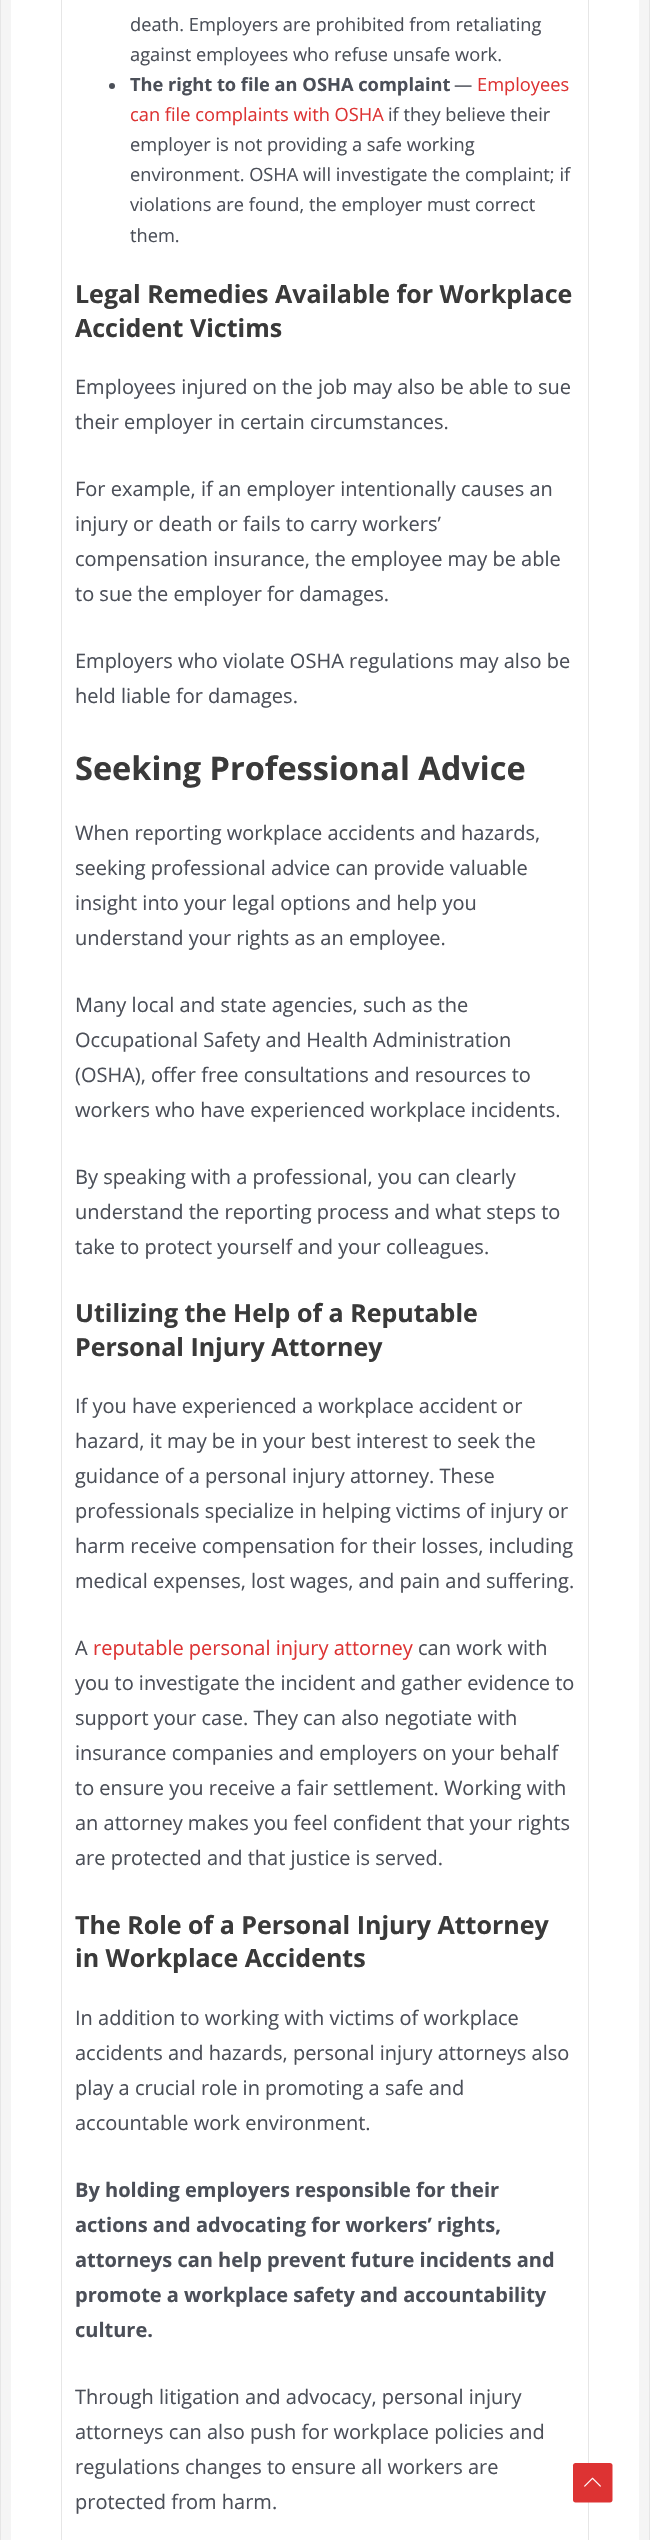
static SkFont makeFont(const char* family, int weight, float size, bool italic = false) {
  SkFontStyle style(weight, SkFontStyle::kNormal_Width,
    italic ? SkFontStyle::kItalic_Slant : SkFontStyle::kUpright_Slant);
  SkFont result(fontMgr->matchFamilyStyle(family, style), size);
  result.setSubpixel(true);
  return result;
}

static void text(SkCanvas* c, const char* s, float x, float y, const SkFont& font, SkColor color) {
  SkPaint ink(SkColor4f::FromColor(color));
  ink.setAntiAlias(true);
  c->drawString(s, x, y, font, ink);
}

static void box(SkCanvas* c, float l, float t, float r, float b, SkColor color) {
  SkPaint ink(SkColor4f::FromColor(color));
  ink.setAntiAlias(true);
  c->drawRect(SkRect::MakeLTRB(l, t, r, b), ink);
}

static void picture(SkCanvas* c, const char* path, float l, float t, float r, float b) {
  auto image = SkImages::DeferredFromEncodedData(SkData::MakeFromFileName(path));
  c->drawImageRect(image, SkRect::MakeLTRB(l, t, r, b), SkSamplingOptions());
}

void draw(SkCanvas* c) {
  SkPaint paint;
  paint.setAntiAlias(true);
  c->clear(0xfff5f5f5);
  paint.setStyle(SkPaint::kStroke_Style);
  paint.setStrokeWidth(1);
  paint.setColor(0xffe6e6e6);
  c->drawRect(SkRect::MakeLTRB(0.5f, -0.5f, 649.5f, 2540.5f), paint);
  box(c, 11, 0, 639, 2540, 0xffffffff);
  c->drawRect(SkRect::MakeLTRB(61.5f, -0.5f, 588.5f, 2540.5f), paint);
  SkFont face1 = makeFont("Open Sans", 400, 18.25f);
  text(c, "death. Employers are prohibited from retaliating", 130, 31, face1, 0xff4b4f58);
  text(c, "against employees who refuse unsafe work.", 130, 61, face1, 0xff4b4f58);
  paint.setStyle(SkPaint::kFill_Style);
  paint.setColor(0xff4b4f58);
  c->drawCircle(112, 86, 3, paint);
  SkFont face2 = makeFont("Open Sans", 700, 18.25f);
  text(c, "The right to file an OSHA complaint", 130, 91, face2, 0xff4b4f58);
  text(c, "—", 454, 91, face1, 0xff4b4f58);
  text(c, "Employees", 477, 91, face1, 0xffdd3333);
  text(c, "can file complaints with OSHA", 130, 121, face1, 0xffdd3333);
  text(c, "if they believe their", 388, 121, face1, 0xff4b4f58);
  text(c, "employer is not providing a safe working", 130, 151, face1, 0xff4b4f58);
  text(c, "environment. OSHA will investigate the complaint; if", 130, 181, face1, 0xff4b4f58);
  text(c, "violations are found, the employer must correct", 130, 211, face1, 0xff4b4f58);
  text(c, "them.", 130, 242, face1, 0xff4b4f58);
  SkFont face3 = makeFont("Open Sans", 700, 25);
  text(c, "Legal Remedies Available for Workplace", 75, 303, face3, 0xff3a3a3a);
  text(c, "Accident Victims", 75, 337, face3, 0xff3a3a3a);
  SkFont face4 = makeFont("Open Sans", 400, 20);
  text(c, "Employees injured on the job may also be able to sue", 75, 394, face4, 0xff4b4f58);
  text(c, "their employer in certain circumstances.", 75, 429, face4, 0xff4b4f58);
  text(c, "For example, if an employer intentionally causes an", 75, 496, face4, 0xff4b4f58);
  text(c, "injury or death or fails to carry workers’", 75, 531, face4, 0xff4b4f58);
  text(c, "compensation insurance, the employee may be able", 75, 566, face4, 0xff4b4f58);
  text(c, "to sue the employer for damages.", 75, 601, face4, 0xff4b4f58);
  text(c, "Employers who violate OSHA regulations may also be", 75, 668, face4, 0xff4b4f58);
  text(c, "held liable for damages.", 75, 703, face4, 0xff4b4f58);
  SkFont face5 = makeFont("Open Sans", 700, 32.5f);
  text(c, "Seeking Professional Advice", 75, 780, face5, 0xff3a3a3a);
  text(c, "When reporting workplace accidents and hazards,", 75, 840, face4, 0xff4b4f58);
  text(c, "seeking professional advice can provide valuable", 75, 875, face4, 0xff4b4f58);
  text(c, "insight into your legal options and help you", 75, 910, face4, 0xff4b4f58);
  text(c, "understand your rights as an employee.", 75, 945, face4, 0xff4b4f58);
  text(c, "Many local and state agencies, such as the", 75, 1012, face4, 0xff4b4f58);
  text(c, "Occupational Safety and Health Administration", 75, 1047, face4, 0xff4b4f58);
  text(c, "(OSHA), offer free consultations and resources to", 75, 1082, face4, 0xff4b4f58);
  text(c, "workers who have experienced workplace incidents.", 75, 1117, face4, 0xff4b4f58);
  text(c, "By speaking with a professional, you can clearly", 75, 1184, face4, 0xff4b4f58);
  text(c, "understand the reporting process and what steps to", 75, 1219, face4, 0xff4b4f58);
  text(c, "take to protect yourself and your colleagues.", 75, 1254, face4, 0xff4b4f58);
  text(c, "Utilizing the Help of a Reputable", 75, 1322, face3, 0xff3a3a3a);
  text(c, "Personal Injury Attorney", 75, 1356, face3, 0xff3a3a3a);
  text(c, "If you have experienced a workplace accident or", 75, 1413, face4, 0xff4b4f58);
  text(c, "hazard, it may be in your best interest to seek the", 75, 1448, face4, 0xff4b4f58);
  text(c, "guidance of a personal injury attorney. These", 75, 1483, face4, 0xff4b4f58);
  text(c, "professionals specialize in helping victims of injury or", 75, 1518, face4, 0xff4b4f58);
  text(c, "harm receive compensation for their losses, including", 75, 1553, face4, 0xff4b4f58);
  text(c, "medical expenses, lost wages, and pain and suffering.", 75, 1588, face4, 0xff4b4f58);
  text(c, "A", 75, 1655, face4, 0xff4b4f58);
  text(c, "reputable personal injury attorney", 93, 1655, face4, 0xffdd3333);
  text(c, "can work with", 418, 1655, face4, 0xff4b4f58);
  text(c, "you to investigate the incident and gather evidence to", 75, 1690, face4, 0xff4b4f58);
  text(c, "support your case. They can also negotiate with", 75, 1725, face4, 0xff4b4f58);
  text(c, "insurance companies and employers on your behalf", 75, 1760, face4, 0xff4b4f58);
  text(c, "to ensure you receive a fair settlement. Working with", 75, 1795, face4, 0xff4b4f58);
  text(c, "an attorney makes you feel confident that your rights", 75, 1830, face4, 0xff4b4f58);
  text(c, "are protected and that justice is served.", 75, 1865, face4, 0xff4b4f58);
  text(c, "The Role of a Personal Injury Attorney", 75, 1934, face3, 0xff3a3a3a);
  text(c, "in Workplace Accidents", 75, 1967, face3, 0xff3a3a3a);
  text(c, "In addition to working with victims of workplace", 75, 2025, face4, 0xff4b4f58);
  text(c, "accidents and hazards, personal injury attorneys also", 75, 2060, face4, 0xff4b4f58);
  text(c, "play a crucial role in promoting a safe and", 75, 2095, face4, 0xff4b4f58);
  text(c, "accountable work environment.", 75, 2130, face4, 0xff4b4f58);
  SkFont face6 = makeFont("Open Sans", 700, 20);
  text(c, "By holding employers responsible for their", 75, 2197, face6, 0xff4b4f58);
  text(c, "actions and advocating for workers’ rights,", 75, 2232, face6, 0xff4b4f58);
  text(c, "attorneys can help prevent future incidents and", 75, 2267, face6, 0xff4b4f58);
  text(c, "promote a workplace safety and accountability", 75, 2302, face6, 0xff4b4f58);
  text(c, "culture.", 75, 2337, face6, 0xff4b4f58);
  text(c, "Through litigation and advocacy, personal injury", 75, 2404, face4, 0xff4b4f58);
  text(c, "attorneys can also push for workplace policies and", 75, 2439, face4, 0xff4b4f58);
  text(c, "regulations changes to ensure all workers are", 75, 2474, face4, 0xff4b4f58);
  text(c, "protected from harm.", 75, 2509, face4, 0xff4b4f58);
  paint.setColor(0xffdd3333);
  c->drawPath(SkPathBuilder().moveTo(610, 2502.5f).lineTo(575.5f, 2502.5f).cubicTo(574, 2502.5f, 573, 2501.5f, 573, 2500).lineTo(573, 2465.5f).cubicTo(573, 2464, 574, 2463, 575.5f, 2463).lineTo(610, 2463).cubicTo(611.5f, 2463, 612.5f, 2464, 612.5f, 2465.5f).lineTo(612.5f, 2500).cubicTo(612.5f, 2501.5f, 611.5f, 2502.5f, 610, 2502.5f).close().detach(), paint);
  picture(c, "img_01.png", 584, 2477, 601, 2487);
}
